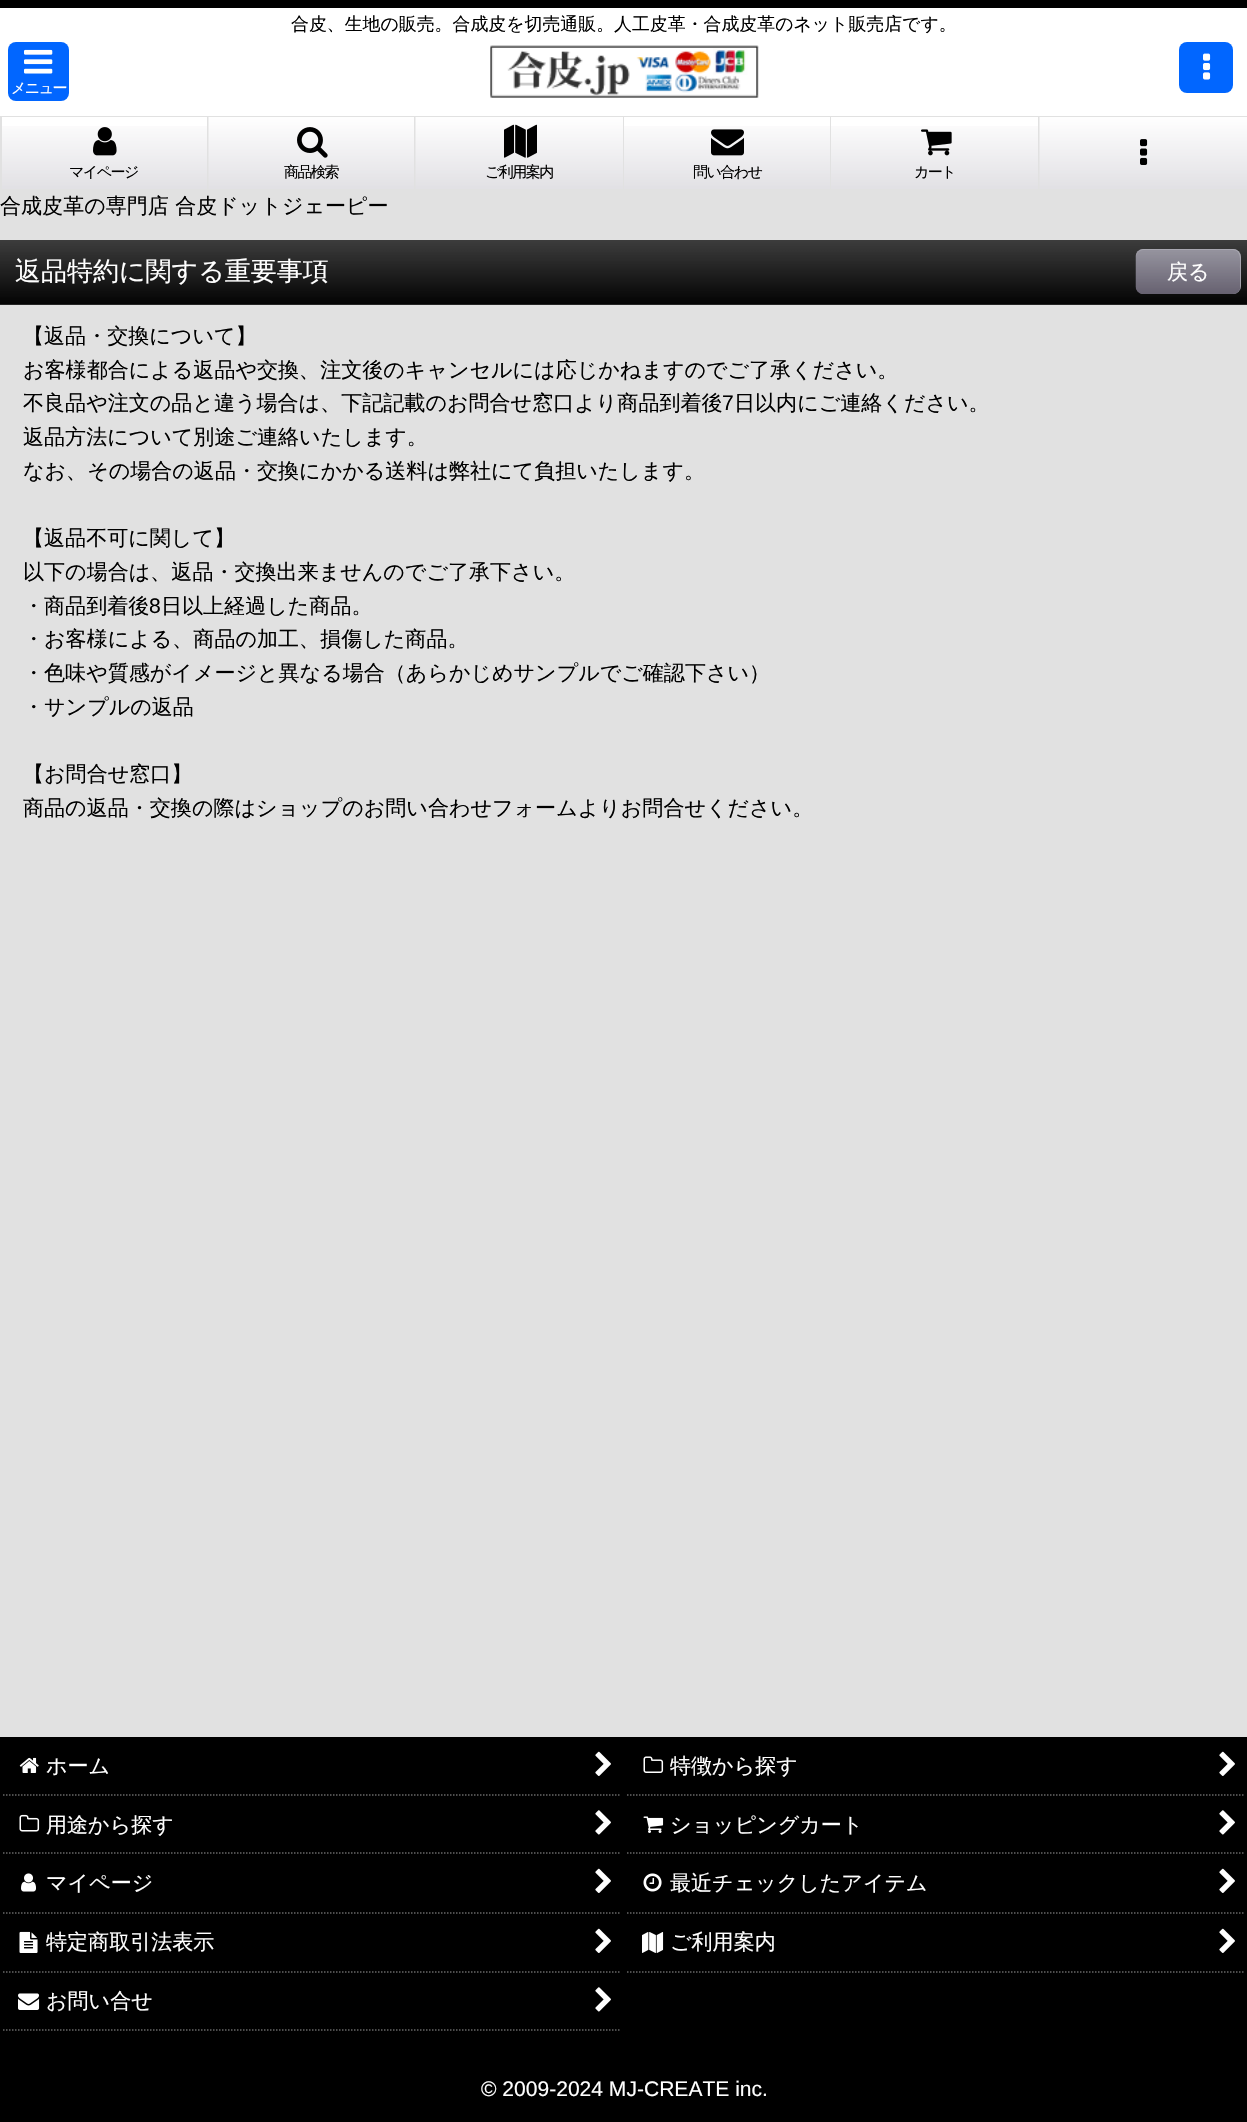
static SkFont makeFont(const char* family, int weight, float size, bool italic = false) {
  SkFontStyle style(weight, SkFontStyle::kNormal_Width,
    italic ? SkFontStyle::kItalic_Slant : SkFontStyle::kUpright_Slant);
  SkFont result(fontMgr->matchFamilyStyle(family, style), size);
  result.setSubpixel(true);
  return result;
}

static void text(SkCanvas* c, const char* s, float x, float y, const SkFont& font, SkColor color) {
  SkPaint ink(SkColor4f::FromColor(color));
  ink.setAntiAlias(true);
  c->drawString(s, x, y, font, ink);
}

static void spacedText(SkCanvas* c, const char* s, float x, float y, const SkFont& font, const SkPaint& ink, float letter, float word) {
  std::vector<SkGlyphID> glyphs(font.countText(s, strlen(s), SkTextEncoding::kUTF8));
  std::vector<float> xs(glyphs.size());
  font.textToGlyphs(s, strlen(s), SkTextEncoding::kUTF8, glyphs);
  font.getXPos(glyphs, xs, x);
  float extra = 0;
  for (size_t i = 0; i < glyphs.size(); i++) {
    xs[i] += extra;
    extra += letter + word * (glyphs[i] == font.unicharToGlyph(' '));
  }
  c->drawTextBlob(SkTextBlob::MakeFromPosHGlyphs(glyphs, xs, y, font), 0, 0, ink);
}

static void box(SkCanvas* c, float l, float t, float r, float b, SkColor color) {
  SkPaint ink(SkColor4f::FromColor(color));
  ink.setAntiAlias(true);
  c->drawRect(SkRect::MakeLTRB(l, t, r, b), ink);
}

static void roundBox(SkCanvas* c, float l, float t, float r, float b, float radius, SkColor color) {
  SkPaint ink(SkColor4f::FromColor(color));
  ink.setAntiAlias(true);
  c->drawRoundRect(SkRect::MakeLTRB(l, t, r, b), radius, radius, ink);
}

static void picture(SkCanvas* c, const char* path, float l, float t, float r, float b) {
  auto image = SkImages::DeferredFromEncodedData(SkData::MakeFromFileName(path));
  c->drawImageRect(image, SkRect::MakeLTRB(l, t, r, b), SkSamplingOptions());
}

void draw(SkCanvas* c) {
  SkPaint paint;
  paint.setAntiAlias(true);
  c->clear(0xffe1e1e1);
  box(c, 0, 8, 1247, 116, 0xffffffff);
  box(c, 0, 0, 1247, 8, 0xff000000);
  SkFont face1 = makeFont("WenQuanYi Zen Hei", 500, 17.9f);
  text(c, "合皮、生地の販売。合成皮を切売通販。人工皮革・合成皮革のネット販売店です。", 291, 30, face1, 0xff000000);
  roundBox(c, 8, 42, 69, 101, 8, 0xff0166ff);
  picture(c, "img_01.png", 24, 49, 53, 74);
  SkFont face2 = makeFont("WenQuanYi Zen Hei", 500, 15);
  paint.setColor(0xffffffff);
  spacedText(c, "メニュー", 11, 93, face2, paint, -1.5f, 0);
  picture(c, "img_02.png", 490, 45, 759, 98);
  roundBox(c, 1179, 42, 1233, 93, 8, 0xff0166ff);
  picture(c, "img_03.png", 1203, 53, 1211, 80);
  box(c, 2, 117, 207, 126, 0xffffffff);
  picture(c, "img_04.png", 2, 126, 207, 189);
  picture(c, "img_05.png", 93, 127, 117, 156);
  paint.setColor(0xff000000);
  spacedText(c, "マイページ", 69, 177, face2, paint, -1.5f, 0);
  picture(c, "img_06.png", 208, 117, 414, 189);
  picture(c, "img_07.png", 297, 127, 328, 158);
  spacedText(c, "商品検索", 284, 177, face2, paint, -1.5f, 0);
  picture(c, "img_08.png", 415, 117, 623, 189);
  picture(c, "img_09.png", 504, 124, 537, 158);
  spacedText(c, "ご利用案内", 485, 177, face2, paint, -1.5f, 0);
  box(c, 624, 117, 830, 126, 0xffffffff);
  picture(c, "img_10.png", 624, 126, 830, 189);
  picture(c, "img_11.png", 711, 129, 744, 156);
  spacedText(c, "問い合わせ", 693, 177, face2, paint, -1.5f, 0);
  box(c, 831, 117, 1038, 126, 0xffffffff);
  picture(c, "img_12.png", 831, 126, 1038, 189);
  picture(c, "img_13.png", 921, 129, 952, 156);
  spacedText(c, "カート", 914, 177, face2, paint, -1.5f, 0);
  picture(c, "img_14.png", 1039, 117, 1247, 189);
  picture(c, "img_15.png", 1140, 139, 1148, 165);
  SkFont face3 = makeFont("WenQuanYi Zen Hei", 500, 21.05f);
  text(c, "合成皮革の専門店 合皮ドットジェーピー", 0, 213, face3, 0xff000000);
  box(c, 0, 304, 1247, 305, 0xff444444);
  picture(c, "img_16.png", 0, 240, 1247, 305);
  SkFont face4 = makeFont("WenQuanYi Zen Hei", 500, 26);
  text(c, "返品特約に関する重要事項", 15, 280, face4, 0xffffffff);
  roundBox(c, 1136, 249, 1241, 294, 8, 0xff94929d);
  picture(c, "img_17.png", 1135, 249, 1241, 294);
  paint.setColor(0x33ffffff);
  c->drawPath(SkPathBuilder().moveTo(1143, 250).lineTo(1233, 250).cubicTo(1242, 250, 1240, 263, 1240, 268).lineTo(1240, 290).cubicTo(1240, 289, 1241, 288, 1241, 286).lineTo(1241, 257).cubicTo(1241, 253, 1237, 249, 1233, 249).lineTo(1144, 249).cubicTo(1140, 249, 1136, 253, 1136, 257).lineTo(1136, 258).cubicTo(1136, 254, 1139, 250, 1143, 250).close().detach(), paint);
  text(c, "戻る", 1167, 279, face3, 0xffffffff);
  text(c, "【返品・交換について】", 23, 343, face3, 0xff000000);
  text(c, "お客様都合による返品や交換、注文後のキャンセルには応じかねますのでご了承ください。", 23, 377, face3, 0xff000000);
  text(c, "不良品や注文の品と違う場合は、下記記載のお問合せ窓口より商品到着後", 23, 410, face3, 0xff000000);
  SkFont face5 = makeFont("Liberation Sans", 400, 21.05f);
  text(c, "7", 722, 410, face5, 0xff000000);
  text(c, "日以内にご連絡ください。", 734, 410, face3, 0xff000000);
  text(c, "返品方法について別途ご連絡いたします。", 23, 444, face3, 0xff000000);
  text(c, "なお、その場合の返品・交換にかかる送料は弊社にて負担いたします。", 23, 478, face3, 0xff000000);
  text(c, "【返品不可に関して】", 23, 545, face3, 0xff000000);
  text(c, "以下の場合は、返品・交換出来ませんのでご了承下さい。", 23, 579, face3, 0xff000000);
  text(c, "・商品到着後", 23, 613, face3, 0xff000000);
  text(c, "8", 149, 613, face5, 0xff000000);
  text(c, "日以上経過した商品。", 161, 613, face3, 0xff000000);
  text(c, "・お客様による、商品の加工、損傷した商品。", 23, 646, face3, 0xff000000);
  text(c, "・色味や質感がイメージと異なる場合（あらかじめサンプルでご確認下さい）", 23, 680, face3, 0xff000000);
  text(c, "・サンプルの返品", 23, 714, face3, 0xff000000);
  text(c, "【お問合せ窓口】", 23, 781, face3, 0xff000000);
  text(c, "商品の返品・交換の際はショップのお問い合わせフォームよりお問合せください。", 23, 815, face3, 0xff000000);
  box(c, 0, 1737, 1247, 2122, 0xff000000);
  paint.setStyle(SkPaint::kStroke_Style);
  paint.setStrokeWidth(1.5f);
  paint.setColor(0xff666666);
  paint.setPathEffect(SkDashPathEffect::Make({{1.5f, 1.5f}}, 0));
  c->drawPath(SkPathBuilder().moveTo(3, 1795).lineTo(621, 1795).detach(), paint);
  paint.setPathEffect(nullptr);
  picture(c, "img_18.png", 19, 1757, 39, 1773);
  text(c, "ホーム", 46, 1773, face3, 0xffffffff);
  picture(c, "img_19.png", 595, 1751, 611, 1776);
  paint.setPathEffect(SkDashPathEffect::Make({{1.5f, 1.5f}}, 0));
  c->drawPath(SkPathBuilder().moveTo(627, 1795).lineTo(1245, 1795).detach(), paint);
  paint.setPathEffect(nullptr);
  picture(c, "img_20.png", 643, 1756, 664, 1773);
  text(c, "特徴から探す", 670, 1773, face3, 0xffffffff);
  picture(c, "img_19.png", 1219, 1751, 1235, 1776);
  paint.setPathEffect(SkDashPathEffect::Make({{1.5f, 1.5f}}, 0));
  c->drawPath(SkPathBuilder().moveTo(3, 1853).lineTo(621, 1853).detach(), paint);
  paint.setPathEffect(nullptr);
  picture(c, "img_21.png", 19, 1814, 40, 1832);
  text(c, "用途から探す", 46, 1832, face3, 0xffffffff);
  picture(c, "img_22.png", 595, 1810, 611, 1835);
  paint.setPathEffect(SkDashPathEffect::Make({{1.5f, 1.5f}}, 0));
  c->drawPath(SkPathBuilder().moveTo(627, 1853).lineTo(1245, 1853).detach(), paint);
  paint.setPathEffect(nullptr);
  picture(c, "img_23.png", 643, 1816, 664, 1833);
  text(c, "ショッピングカート", 670, 1832, face3, 0xffffffff);
  picture(c, "img_22.png", 1219, 1810, 1235, 1835);
  paint.setPathEffect(SkDashPathEffect::Make({{1.5f, 1.5f}}, 0));
  c->drawPath(SkPathBuilder().moveTo(3, 1913).lineTo(621, 1913).detach(), paint);
  paint.setPathEffect(nullptr);
  picture(c, "img_24.png", 21, 1873, 36, 1892);
  text(c, "マイページ", 46, 1890, face3, 0xffffffff);
  picture(c, "img_19.png", 595, 1868, 611, 1893);
  paint.setPathEffect(SkDashPathEffect::Make({{1.5f, 1.5f}}, 0));
  c->drawPath(SkPathBuilder().moveTo(627, 1913).lineTo(1245, 1913).detach(), paint);
  paint.setPathEffect(nullptr);
  picture(c, "img_25.png", 643, 1873, 662, 1892);
  text(c, "最近チェックしたアイテム", 670, 1890, face3, 0xffffffff);
  picture(c, "img_19.png", 1219, 1868, 1235, 1893);
  paint.setPathEffect(SkDashPathEffect::Make({{1.5f, 1.5f}}, 0));
  c->drawPath(SkPathBuilder().moveTo(3, 1972).lineTo(621, 1972).detach(), paint);
  paint.setPathEffect(nullptr);
  picture(c, "img_26.png", 19, 1931, 38, 1953);
  text(c, "特定商取引法表示", 46, 1949, face3, 0xffffffff);
  picture(c, "img_19.png", 595, 1928, 611, 1953);
  paint.setPathEffect(SkDashPathEffect::Make({{1.5f, 1.5f}}, 0));
  c->drawPath(SkPathBuilder().moveTo(627, 1972).lineTo(1245, 1972).detach(), paint);
  paint.setPathEffect(nullptr);
  picture(c, "img_27.png", 642, 1932, 664, 1953);
  text(c, "ご利用案内", 670, 1949, face3, 0xffffffff);
  picture(c, "img_19.png", 1219, 1928, 1235, 1953);
  paint.setPathEffect(SkDashPathEffect::Make({{1.5f, 1.5f}}, 0));
  c->drawPath(SkPathBuilder().moveTo(3, 2030).lineTo(621, 2030).detach(), paint);
  paint.setPathEffect(nullptr);
  picture(c, "img_28.png", 18, 1993, 40, 2010);
  text(c, "お問い合せ", 46, 2008, face3, 0xffffffff);
  picture(c, "img_22.png", 595, 1987, 611, 2012);
  text(c, "© 2009-2024 MJ-CREATE inc.", 481, 2096, face5, 0xffffffff);
}
